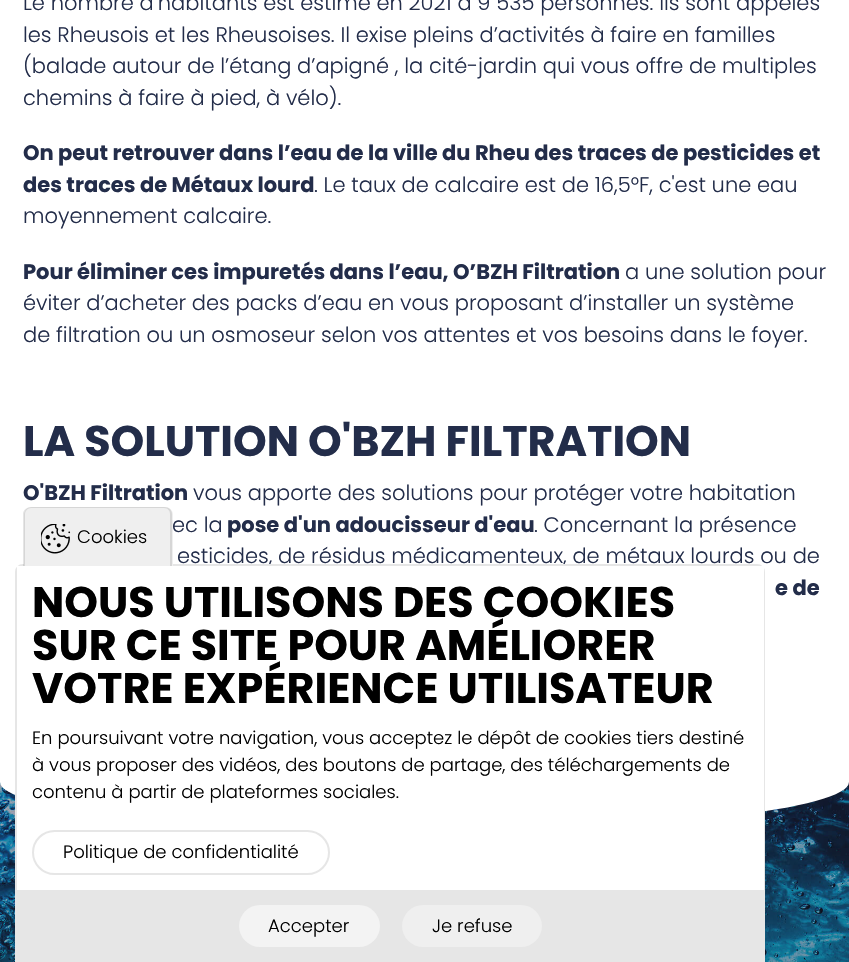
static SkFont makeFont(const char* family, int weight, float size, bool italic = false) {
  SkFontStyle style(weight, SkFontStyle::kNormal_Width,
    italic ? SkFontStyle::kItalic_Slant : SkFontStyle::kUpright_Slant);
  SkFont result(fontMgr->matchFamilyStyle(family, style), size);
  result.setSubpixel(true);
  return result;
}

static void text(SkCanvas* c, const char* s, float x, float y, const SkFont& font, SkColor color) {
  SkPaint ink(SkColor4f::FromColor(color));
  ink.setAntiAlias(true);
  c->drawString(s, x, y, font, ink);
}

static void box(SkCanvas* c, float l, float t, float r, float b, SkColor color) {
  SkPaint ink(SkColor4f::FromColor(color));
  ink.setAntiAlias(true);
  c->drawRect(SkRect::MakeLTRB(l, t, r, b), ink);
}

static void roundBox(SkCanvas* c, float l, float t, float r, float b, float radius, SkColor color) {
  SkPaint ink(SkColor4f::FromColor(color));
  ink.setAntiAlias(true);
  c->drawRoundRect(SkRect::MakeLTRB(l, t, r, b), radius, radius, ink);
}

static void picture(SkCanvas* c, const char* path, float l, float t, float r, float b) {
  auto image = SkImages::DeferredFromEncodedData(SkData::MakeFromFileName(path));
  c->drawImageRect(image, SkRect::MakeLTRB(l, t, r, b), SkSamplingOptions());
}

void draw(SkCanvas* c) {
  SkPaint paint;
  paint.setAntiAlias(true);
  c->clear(0xffffffff);
  SkFont face1 = makeFont("Poppins", 300, 21);
  text(c, "Le nombre d’habitants est estimé en 2021 à 9 535 personnes. Ils sont appelés", 23, 10, face1, 0xff232d4a);
  text(c, "les Rheusois et les Rheusoises. Il exise pleins d’activités à faire en familles", 23, 42, face1, 0xff232d4a);
  text(c, "(balade autour de l’étang d’apigné , la cité-jardin qui vous offre de multiples", 23, 73, face1, 0xff232d4a);
  text(c, "chemins à faire à pied, à vélo).", 23, 105, face1, 0xff232d4a);
  SkFont face2 = makeFont("Poppins", 700, 21);
  text(c, "On peut retrouver dans l’eau de la ville du Rheu des traces de pesticides et", 23, 160, face2, 0xff232d4a);
  text(c, "des traces de Métaux lourd", 23, 192, face2, 0xff232d4a);
  text(c, ". Le taux de calcaire est de 16,5°F, c'est une eau", 314, 192, face1, 0xff232d4a);
  text(c, "moyennement calcaire.", 23, 223, face1, 0xff232d4a);
  text(c, "Pour éliminer ces impuretés dans l’eau, O’BZH Filtration", 23, 279, face2, 0xff232d4a);
  text(c, "a une solution pour", 625, 279, face1, 0xff232d4a);
  text(c, "éviter d’acheter des packs d’eau en vous proposant d’installer un système", 23, 310, face1, 0xff232d4a);
  text(c, "de filtration ou un osmoseur selon vos attentes et vos besoins dans le foyer.", 23, 342, face1, 0xff232d4a);
  SkFont face3 = makeFont("Poppins", 700, 42.9f);
  text(c, "LA SOLUTION O'BZH FILTRATION", 23, 456, face3, 0xff232d4a);
  text(c, "O'BZH Filtration", 23, 500, face2, 0xff232d4a);
  text(c, "vous apporte des solutions pour protéger votre habitation", 193, 500, face1, 0xff232d4a);
  text(c, "ec la", 172, 532, face1, 0xff232d4a);
  text(c, "pose d'un adoucisseur d'eau", 227, 532, face2, 0xff232d4a);
  text(c, ". Concernant la présence", 534, 532, face1, 0xff232d4a);
  text(c, "esticides, de résidus médicamenteux, de métaux lourds ou de", 177, 563, face1, 0xff232d4a);
  text(c, "e de", 775, 595, face2, 0xff232d4a);
  picture(c, "img_01.png", 0, 782, 849, 962);
  paint.setColor(0xffffffff);
  c->drawPath(SkPathBuilder().moveTo(0, 734).lineTo(849, 734).lineTo(849, 782).cubicTo(849, 809, 659, 831, 424, 831).cubicTo(190, 831, 0, 809, 0, 782).close().detach(), paint);
  paint.setStyle(SkPaint::kStroke_Style);
  paint.setStrokeWidth(2);
  paint.setColor(0xffe6e6e6);
  c->drawPath(SkPathBuilder().moveTo(23, 565).lineTo(757, 565).cubicTo(761, 565, 764, 568, 764, 572).lineTo(764, 962).lineTo(16, 962).lineTo(16, 572).cubicTo(16, 568, 19, 565, 23, 565).close().detach(), paint);
  paint.setStyle(SkPaint::kFill_Style);
  paint.setColor(0xffefefef);
  c->drawPath(SkPathBuilder().moveTo(32, 507).lineTo(165, 507).cubicTo(169.5f, 507, 173, 510.5f, 173, 515).lineTo(173, 566).lineTo(24, 566).lineTo(24, 515).cubicTo(24, 510.5f, 27.5f, 507, 32, 507).close().detach(), paint);
  paint.setColor(0x1a000000);
  c->drawPath(SkPathBuilder(SkPathFillType::kEvenOdd).moveTo(31, 507).lineTo(164, 507).cubicTo(169, 507, 172, 510, 172, 514).lineTo(172, 566).lineTo(23, 566).lineTo(23, 514).cubicTo(23, 510, 27, 507, 31, 507).close().moveTo(31, 508).lineTo(164, 508).cubicTo(168, 508, 170, 511, 170, 514).lineTo(170, 566).lineTo(25, 566).lineTo(25, 514).cubicTo(25, 511, 28, 508, 31, 508).close().detach(), paint);
  picture(c, "img_02.png", 41, 524, 71, 554);
  SkFont face4 = makeFont("Poppins", 300, 18);
  text(c, "Cookies", 77, 543, face4, 0xff000000);
  box(c, 17, 566, 764, 890, 0xffffffff);
  text(c, "NOUS UTILISONS DES COOKIES", 32, 617, face3, 0xff000000);
  text(c, "SUR CE SITE POUR AMÉLIORER", 32, 660, face3, 0xff000000);
  text(c, "VOTRE EXPÉRIENCE UTILISATEUR", 32, 703, face3, 0xff000000);
  text(c, "En poursuivant votre navigation, vous acceptez le dépôt de cookies tiers destiné", 32, 744, face4, 0xff000000);
  text(c, "à vous proposer des vidéos, des boutons de partage, des téléchargements de", 32, 771, face4, 0xff000000);
  text(c, "contenu à partir de plateformes sociales.", 32, 798, face4, 0xff000000);
  paint.setStyle(SkPaint::kStroke_Style);
  paint.setColor(0xffe6e6e6);
  c->drawRoundRect(SkRect::MakeLTRB(33, 831, 329, 874), 21.5f, 21.5f, paint);
  text(c, "Politique de confidentialité", 63, 858, face4, 0xff000000);
  box(c, 17, 890, 763, 961, 0xffe6e6e6);
  roundBox(c, 239, 905, 380, 947, 21, 0xfff3f3f3);
  text(c, "Accepter", 268, 932, face4, 0xff000000);
  roundBox(c, 402, 905, 542, 947, 21, 0xffefefef);
  text(c, "Je refuse", 432, 932, face4, 0xff000000);
}
